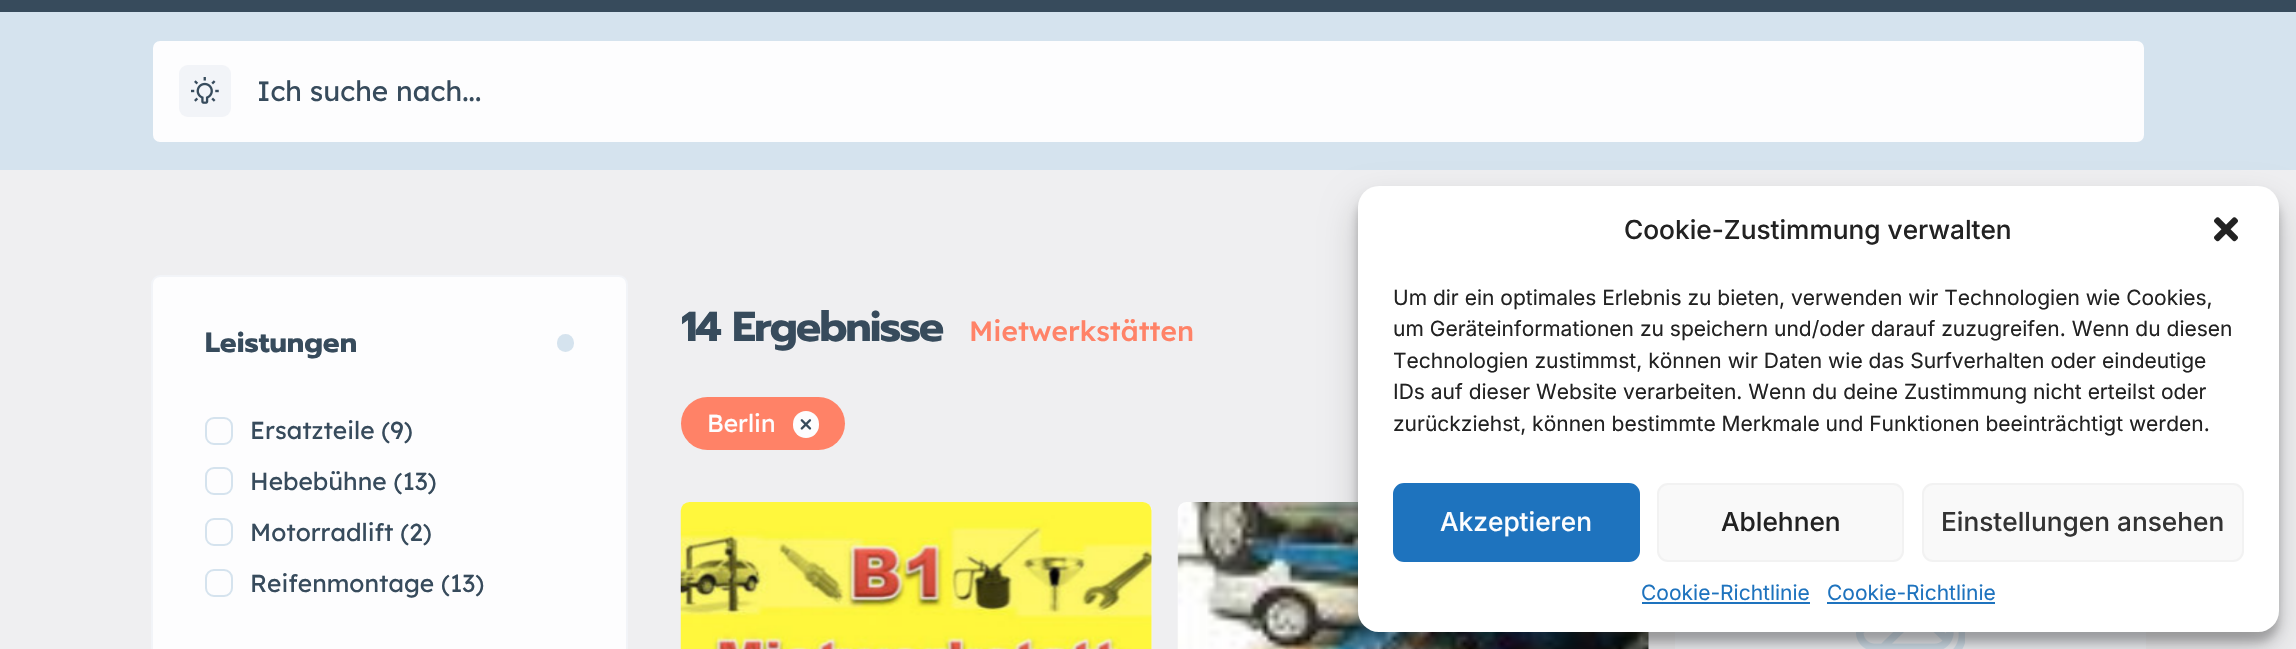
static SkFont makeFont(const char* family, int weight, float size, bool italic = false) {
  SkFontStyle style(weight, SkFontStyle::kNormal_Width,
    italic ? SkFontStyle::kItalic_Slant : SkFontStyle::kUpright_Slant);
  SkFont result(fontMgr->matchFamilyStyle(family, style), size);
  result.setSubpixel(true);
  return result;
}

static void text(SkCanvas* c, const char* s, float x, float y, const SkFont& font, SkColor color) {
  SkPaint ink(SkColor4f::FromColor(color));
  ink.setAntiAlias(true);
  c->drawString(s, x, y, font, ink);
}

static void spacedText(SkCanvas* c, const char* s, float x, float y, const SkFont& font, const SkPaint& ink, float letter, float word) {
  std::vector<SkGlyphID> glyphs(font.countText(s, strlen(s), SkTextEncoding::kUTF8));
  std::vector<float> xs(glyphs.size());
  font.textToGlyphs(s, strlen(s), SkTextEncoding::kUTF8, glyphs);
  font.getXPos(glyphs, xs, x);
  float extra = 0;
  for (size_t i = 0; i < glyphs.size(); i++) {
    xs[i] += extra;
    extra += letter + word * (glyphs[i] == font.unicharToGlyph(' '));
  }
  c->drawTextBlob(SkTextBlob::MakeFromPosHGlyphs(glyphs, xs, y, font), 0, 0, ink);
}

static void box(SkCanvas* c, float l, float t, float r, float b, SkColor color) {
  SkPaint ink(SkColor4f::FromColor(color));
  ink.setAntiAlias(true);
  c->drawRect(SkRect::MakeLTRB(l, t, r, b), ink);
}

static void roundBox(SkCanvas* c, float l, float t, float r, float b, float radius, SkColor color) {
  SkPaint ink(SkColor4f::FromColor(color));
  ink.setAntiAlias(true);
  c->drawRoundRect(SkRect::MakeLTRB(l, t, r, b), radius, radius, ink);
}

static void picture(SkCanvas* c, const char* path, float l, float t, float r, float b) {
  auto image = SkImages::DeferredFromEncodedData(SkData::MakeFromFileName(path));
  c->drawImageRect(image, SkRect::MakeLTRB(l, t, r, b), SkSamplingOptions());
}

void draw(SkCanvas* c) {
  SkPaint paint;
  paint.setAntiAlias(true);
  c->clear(0xffefeff1);
  box(c, 0, 0, 2296, 12, 0xff374b5c);
  box(c, 0, 12, 2296, 170, 0xffd5e3ee);
  paint.setColor(0xfffdfdfe);
  c->drawRoundRect(SkRect::MakeLTRB(152, 40, 2145, 143), 8, 8, paint);
  paint.setStyle(SkPaint::kStroke_Style);
  paint.setStrokeWidth(2);
  paint.setColor(0xffd5e3ee);
  c->drawRoundRect(SkRect::MakeLTRB(152, 40, 2145, 143), 8, 8, paint);
  roundBox(c, 179, 65, 231, 117, 9, 0xfff2f4f8);
  picture(c, "img_01.png", 191, 77, 219, 104);
  SkFont face1 = makeFont("Lexend Deca", 400, 28);
  text(c, "Ich suche nach...", 257, 101, face1, 0xff374b5c);
  paint.setStyle(SkPaint::kFill_Style);
  paint.setColor(0xfffdfdfe);
  c->drawRoundRect(SkRect::MakeLTRB(152, 276, 627, 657), 8, 8, paint);
  paint.setStyle(SkPaint::kStroke_Style);
  paint.setColor(0xfff2f4f8);
  c->drawRoundRect(SkRect::MakeLTRB(152, 276, 627, 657), 8, 8, paint);
  SkFont face2 = makeFont("Prompt", 700, 28);
  text(c, "Leistungen", 205, 352, face2, 0xff374b5c);
  roundBox(c, 557, 334, 574, 352, 8.5f, 0xffd5e3ee);
  paint.setColor(0xffd5e3ee);
  c->drawRoundRect(SkRect::MakeLTRB(206, 418, 232, 444), 8, 8, paint);
  SkFont face3 = makeFont("Lexend Deca", 400, 24.5f);
  text(c, "Ersatzteile (9)", 250, 439, face3, 0xff374b5c);
  c->drawRoundRect(SkRect::MakeLTRB(206, 468, 232, 494), 8, 8, paint);
  text(c, "Hebebühne (13)", 250, 490, face3, 0xff374b5c);
  c->drawRoundRect(SkRect::MakeLTRB(206, 519, 232, 545), 8, 8, paint);
  text(c, "Motorradlift (2)", 250, 541, face3, 0xff374b5c);
  c->drawRoundRect(SkRect::MakeLTRB(206, 570, 232, 596), 8, 8, paint);
  text(c, "Reifenmontage (13)", 250, 592, face3, 0xff374b5c);
  SkFont face4 = makeFont("Prompt", 700, 42);
  paint.setStyle(SkPaint::kFill_Style);
  paint.setColor(0xff374b5c);
  spacedText(c, "14 Ergebnisse", 681, 341, face4, paint, -1.75f, 0);
  SkFont face5 = makeFont("Lexend Deca", 500, 28);
  text(c, "Mietwerkstätten", 969, 341, face5, 0xffff8267);
  roundBox(c, 681, 397, 845, 450, 26.5f, 0xffff8267);
  text(c, "Berlin", 707, 432, face3, 0xfffdfdfe);
  roundBox(c, 793, 411, 819, 438, 13, 0xfffdfdfe);
  picture(c, "img_02.png", 800, 419, 812, 430);
  paint.setColor(0xfff2f4f8);
  c->drawPath(SkPathBuilder().moveTo(690, 502).lineTo(1143, 502).cubicTo(1148, 502, 1152, 506, 1152, 511).lineTo(1152, 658).lineTo(681, 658).lineTo(681, 511).cubicTo(681, 506, 685, 502, 690, 502).close().detach(), paint);
  picture(c, "img_03.png", 680, 502, 1152, 649);
  c->drawPath(SkPathBuilder().moveTo(1187, 502).lineTo(1640, 502).cubicTo(1645, 502, 1649, 506, 1649, 511).lineTo(1649, 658).lineTo(1178, 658).lineTo(1178, 511).cubicTo(1178, 506, 1182, 502, 1187, 502).close().detach(), paint);
  picture(c, "img_04.png", 1177, 502, 1649, 649);
  box(c, 1675, 632, 2146, 649, 0xfff2f4f8);
  picture(c, "img_05.png", 1856, 632, 1965, 649);
  paint.setColor(0x3b000000);
  paint.setMaskFilter(SkMaskFilter::MakeBlur(kNormal_SkBlurStyle, 5));
  c->drawRoundRect(SkRect::MakeLTRB(1358, 196, 2279, 642), 21, 21, paint);
  paint.setMaskFilter(nullptr);
  paint.setColor(0x30000000);
  paint.setMaskFilter(SkMaskFilter::MakeBlur(kNormal_SkBlurStyle, 17.5f));
  c->drawRoundRect(SkRect::MakeLTRB(1358, 203, 2279, 649), 21, 21, paint);
  paint.setMaskFilter(nullptr);
  roundBox(c, 1358, 186, 2279, 632, 21, 0xffffffff);
  SkFont face6 = makeFont("Inter", 500, 26.25f);
  text(c, "Cookie-Zustimmung verwalten", 1624, 239, face6, 0xff222222);
  picture(c, "img_06.png", 2214, 217, 2238, 242);
  SkFont face7 = makeFont("Inter", 400, 21);
  text(c, "Um dir ein optimales Erlebnis zu bieten, verwenden wir Technologien wie Cookies,", 1393, 305, face7, 0xff222222);
  text(c, "um Geräteinformationen zu speichern und/oder darauf zuzugreifen. Wenn du diesen", 1393, 336, face7, 0xff222222);
  text(c, "Technologien zustimmst, können wir Daten wie das Surfverhalten oder eindeutige", 1393, 368, face7, 0xff222222);
  text(c, "IDs auf dieser Website verarbeiten. Wenn du deine Zustimmung nicht erteilst oder", 1393, 399, face7, 0xff222222);
  text(c, "zurückziehst, können bestimmte Merkmale und Funktionen beeinträchtigt werden.", 1393, 431, face7, 0xff222222);
  paint.setColor(0xff1e73be);
  c->drawRoundRect(SkRect::MakeLTRB(1394, 484, 1639, 561), 10, 10, paint);
  paint.setStyle(SkPaint::kStroke_Style);
  c->drawRoundRect(SkRect::MakeLTRB(1394, 484, 1639, 561), 10, 10, paint);
  text(c, "Akzeptieren", 1440, 531, face6, 0xfffdfdfe);
  paint.setStyle(SkPaint::kFill_Style);
  paint.setColor(0xfff9f9f9);
  c->drawRoundRect(SkRect::MakeLTRB(1658, 484, 1903, 561), 10, 10, paint);
  paint.setStyle(SkPaint::kStroke_Style);
  paint.setColor(0xfff2f2f2);
  c->drawRoundRect(SkRect::MakeLTRB(1658, 484, 1903, 561), 10, 10, paint);
  text(c, "Ablehnen", 1721, 531, face6, 0xff222222);
  paint.setStyle(SkPaint::kFill_Style);
  paint.setColor(0xfff9f9f9);
  c->drawRoundRect(SkRect::MakeLTRB(1923, 484, 2243, 561), 10, 10, paint);
  paint.setStyle(SkPaint::kStroke_Style);
  paint.setColor(0xfff2f2f2);
  c->drawRoundRect(SkRect::MakeLTRB(1923, 484, 2243, 561), 10, 10, paint);
  text(c, "Einstellungen ansehen", 1941, 531, face6, 0xff333333);
  text(c, "Cookie-Richtlinie", 1641, 600, face7, 0xff1e73be);
  box(c, 1642, 602, 1810, 604, 0xff1e73be);
  text(c, "Cookie-Richtlinie", 1827, 600, face7, 0xff1e73be);
  box(c, 1827, 602, 1995, 604, 0xff1e73be);
}
